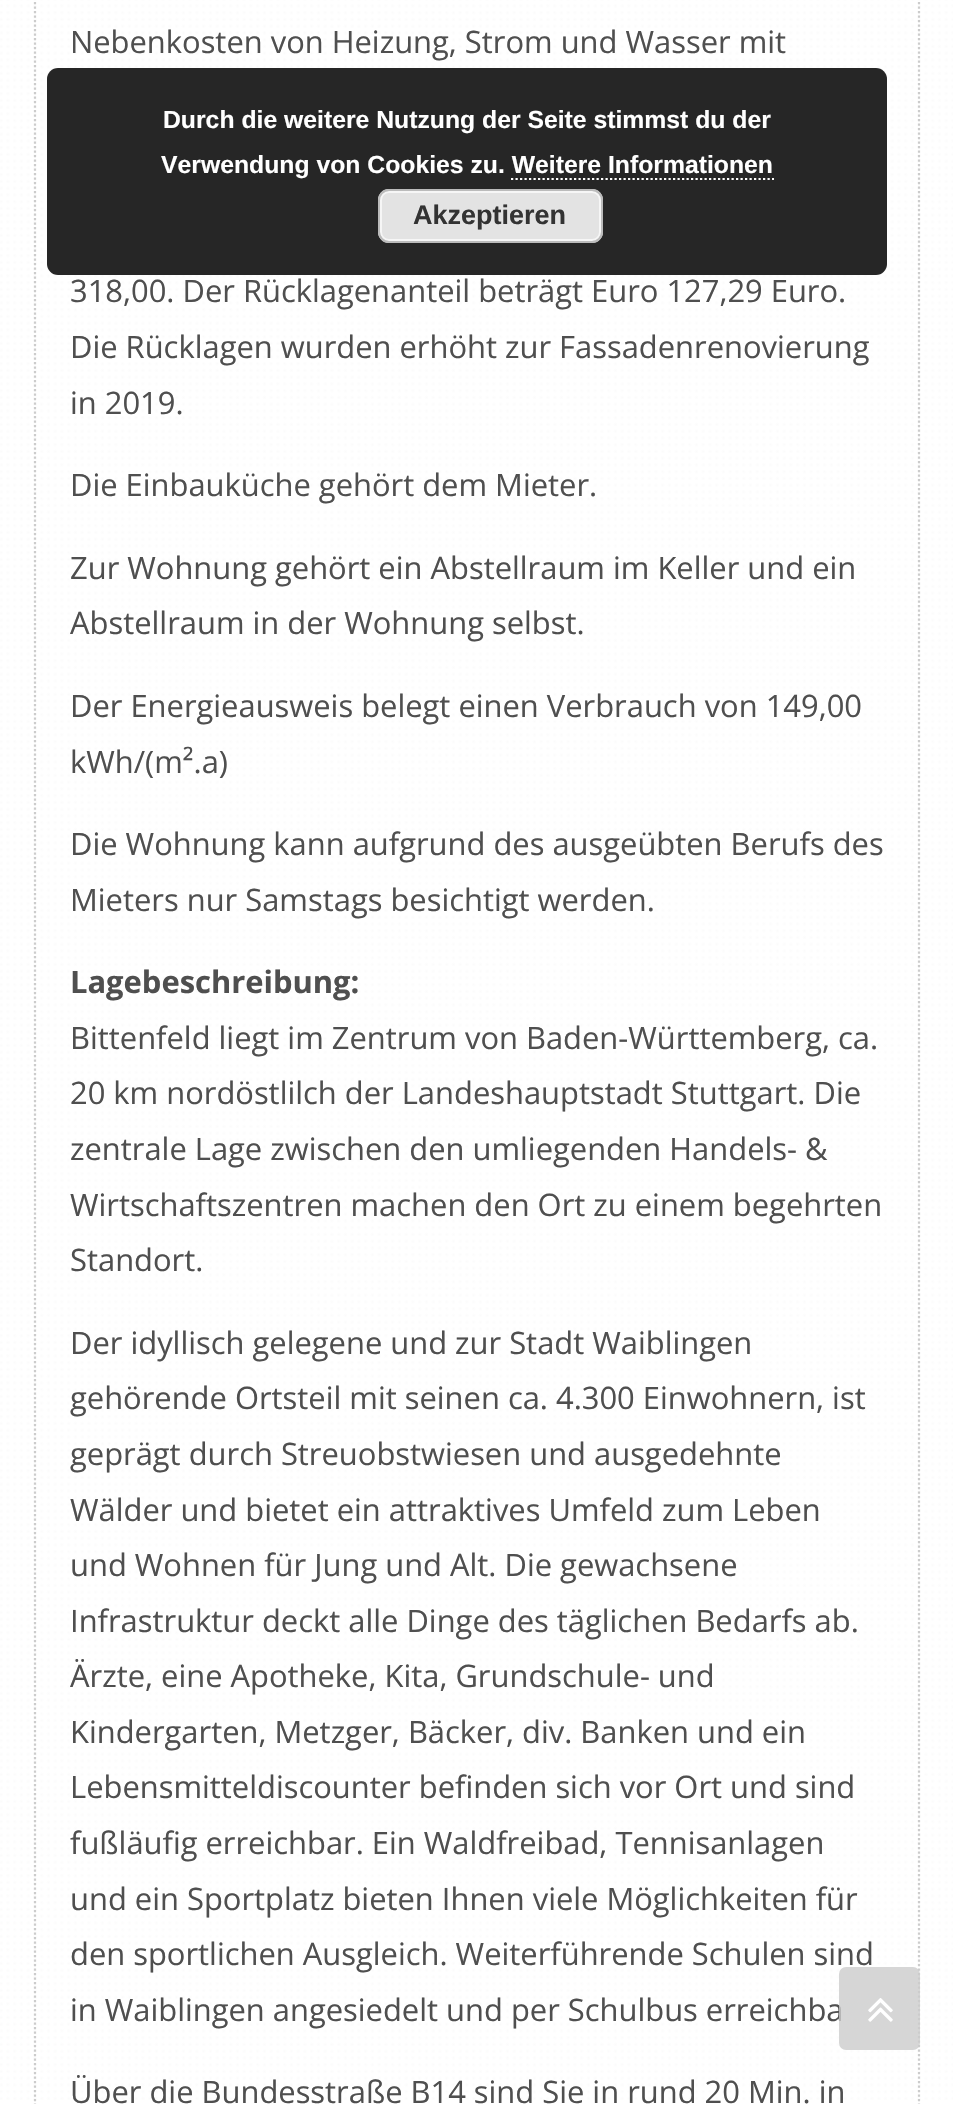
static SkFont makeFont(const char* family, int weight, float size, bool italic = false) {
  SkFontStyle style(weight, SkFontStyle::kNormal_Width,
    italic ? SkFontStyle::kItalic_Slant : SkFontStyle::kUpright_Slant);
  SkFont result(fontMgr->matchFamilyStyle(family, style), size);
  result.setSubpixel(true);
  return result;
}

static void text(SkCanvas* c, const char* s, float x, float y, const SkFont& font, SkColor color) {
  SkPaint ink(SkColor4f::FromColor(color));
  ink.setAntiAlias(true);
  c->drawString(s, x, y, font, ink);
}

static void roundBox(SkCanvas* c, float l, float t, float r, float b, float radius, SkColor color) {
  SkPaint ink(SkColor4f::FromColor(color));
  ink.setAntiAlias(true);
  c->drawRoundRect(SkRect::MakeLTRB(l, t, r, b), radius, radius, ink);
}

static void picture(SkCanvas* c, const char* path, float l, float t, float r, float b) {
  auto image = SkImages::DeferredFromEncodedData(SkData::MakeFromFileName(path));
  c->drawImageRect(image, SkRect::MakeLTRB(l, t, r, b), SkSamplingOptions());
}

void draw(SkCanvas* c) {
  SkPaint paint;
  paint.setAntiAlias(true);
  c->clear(0xffffffff);
  picture(c, "img_01.png", 0, 0, 953, 2100);
  paint.setStyle(SkPaint::kStroke_Style);
  paint.setStrokeWidth(2.2f);
  paint.setColor(0xffcccccc);
  paint.setPathEffect(SkDashPathEffect::Make({{2.25f, 2.25f}}, 0));
  c->drawPath(SkPathBuilder().moveTo(919, -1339).lineTo(919, 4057).detach(), paint);
  paint.setPathEffect(nullptr);
  paint.setPathEffect(SkDashPathEffect::Make({{2.25f, 2.25f}}, 0));
  c->drawPath(SkPathBuilder().moveTo(35, -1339).lineTo(35, 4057).detach(), paint);
  paint.setPathEffect(nullptr);
  SkFont face1 = makeFont("Open Sans", 400, 30.9f);
  text(c, "Nebenkosten von Heizung, Strom und Wasser mit", 70, 53, face1, 0xff4f4f4f);
  text(c, "318,00. Der Rücklagenanteil beträgt Euro 127,29 Euro.", 70, 302, face1, 0xff4f4f4f);
  text(c, "Die Rücklagen wurden erhöht zur Fassadenrenovierung", 70, 358, face1, 0xff4f4f4f);
  text(c, "in 2019.", 70, 414, face1, 0xff4f4f4f);
  text(c, "Die Einbauküche gehört dem Mieter.", 70, 496, face1, 0xff4f4f4f);
  text(c, "Zur Wohnung gehört ein Abstellraum im Keller und ein", 70, 579, face1, 0xff4f4f4f);
  text(c, "Abstellraum in der Wohnung selbst.", 70, 634, face1, 0xff4f4f4f);
  text(c, "Der Energieausweis belegt einen Verbrauch von 149,00", 70, 717, face1, 0xff4f4f4f);
  text(c, "kWh/(m².a)", 70, 773, face1, 0xff4f4f4f);
  text(c, "Die Wohnung kann aufgrund des ausgeübten Berufs des", 70, 855, face1, 0xff4f4f4f);
  text(c, "Mieters nur Samstags besichtigt werden.", 70, 911, face1, 0xff4f4f4f);
  SkFont face2 = makeFont("Open Sans", 700, 30.9f);
  text(c, "Lagebeschreibung:", 70, 993, face2, 0xff4f4f4f);
  text(c, "Bittenfeld liegt im Zentrum von Baden-Württemberg, ca.", 70, 1049, face1, 0xff4f4f4f);
  text(c, "20 km nordöstlilch der Landeshauptstadt Stuttgart. Die", 70, 1104, face1, 0xff4f4f4f);
  text(c, "zentrale Lage zwischen den umliegenden Handels- &", 70, 1160, face1, 0xff4f4f4f);
  text(c, "Wirtschaftszentren machen den Ort zu einem begehrten", 70, 1216, face1, 0xff4f4f4f);
  text(c, "Standort.", 70, 1271, face1, 0xff4f4f4f);
  text(c, "Der idyllisch gelegene und zur Stadt Waiblingen", 70, 1354, face1, 0xff4f4f4f);
  text(c, "gehörende Ortsteil mit seinen ca. 4.300 Einwohnern, ist", 70, 1409, face1, 0xff4f4f4f);
  text(c, "geprägt durch Streuobstwiesen und ausgedehnte", 70, 1465, face1, 0xff4f4f4f);
  text(c, "Wälder und bietet ein attraktives Umfeld zum Leben", 70, 1521, face1, 0xff4f4f4f);
  text(c, "und Wohnen für Jung und Alt. Die gewachsene", 70, 1576, face1, 0xff4f4f4f);
  text(c, "Infrastruktur deckt alle Dinge des täglichen Bedarfs ab.", 70, 1632, face1, 0xff4f4f4f);
  text(c, "Ärzte, eine Apotheke, Kita, Grundschule- und", 70, 1687, face1, 0xff4f4f4f);
  text(c, "Kindergarten, Metzger, Bäcker, div. Banken und ein", 70, 1743, face1, 0xff4f4f4f);
  text(c, "Lebensmitteldiscounter befinden sich vor Ort und sind", 70, 1798, face1, 0xff4f4f4f);
  text(c, "fußläufig erreichbar. Ein Waldfreibad, Tennisanlagen", 70, 1854, face1, 0xff4f4f4f);
  text(c, "und ein Sportplatz bieten Ihnen viele Möglichkeiten für", 70, 1910, face1, 0xff4f4f4f);
  text(c, "den sportlichen Ausgleich. Weiterführende Schulen sind", 70, 1965, face1, 0xff4f4f4f);
  text(c, "in Waiblingen angesiedelt und per Schulbus erreichba", 70, 2021, face1, 0xff4f4f4f);
  text(c, "Über die Bundesstraße B14 sind Sie in rund 20 Min. in", 70, 2103, face1, 0xff4f4f4f);
  roundBox(c, 839, 1967, 920, 2050, 7, 0xcccccccc);
  picture(c, "img_02.png", 868, 1998, 893, 2022);
  roundBox(c, 47, 68, 887, 275, 11, 0xd9000000);
  SkFont face3 = makeFont("Liberation Sans", 700, 24.75f);
  text(c, "Durch die weitere Nutzung der Seite stimmst du der", 163, 128, face3, 0xffffffff);
  text(c, "Verwendung von Cookies zu. Weitere Informationen", 161, 173, face3, 0xffffffff);
  paint.setColor(0xffffffff);
  paint.setPathEffect(SkDashPathEffect::Make({{2.25f, 2.25f}}, 0));
  c->drawPath(SkPathBuilder().moveTo(511, 179).lineTo(774, 179).detach(), paint);
  paint.setPathEffect(nullptr);
  roundBox(c, 378, 189, 603, 243, 11, 0xffe3e3e3);
  paint.setStrokeWidth(2);
  paint.setColor(0xfff6f6f6);
  c->drawRoundRect(SkRect::MakeLTRB(381, 192, 600, 240), 8, 8, paint);
  paint.setColor(0xffbbbbbb);
  c->drawRoundRect(SkRect::MakeLTRB(379, 190, 602, 242), 10, 10, paint);
  SkFont face4 = makeFont("Liberation Sans", 700, 27);
  text(c, "Akzeptieren", 413, 224, face4, 0xff333333);
}
